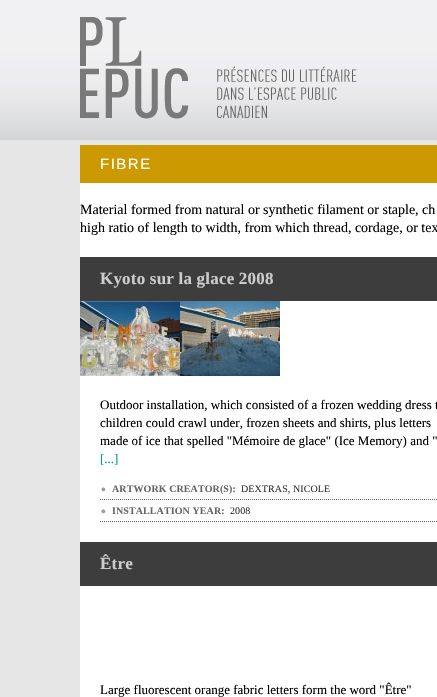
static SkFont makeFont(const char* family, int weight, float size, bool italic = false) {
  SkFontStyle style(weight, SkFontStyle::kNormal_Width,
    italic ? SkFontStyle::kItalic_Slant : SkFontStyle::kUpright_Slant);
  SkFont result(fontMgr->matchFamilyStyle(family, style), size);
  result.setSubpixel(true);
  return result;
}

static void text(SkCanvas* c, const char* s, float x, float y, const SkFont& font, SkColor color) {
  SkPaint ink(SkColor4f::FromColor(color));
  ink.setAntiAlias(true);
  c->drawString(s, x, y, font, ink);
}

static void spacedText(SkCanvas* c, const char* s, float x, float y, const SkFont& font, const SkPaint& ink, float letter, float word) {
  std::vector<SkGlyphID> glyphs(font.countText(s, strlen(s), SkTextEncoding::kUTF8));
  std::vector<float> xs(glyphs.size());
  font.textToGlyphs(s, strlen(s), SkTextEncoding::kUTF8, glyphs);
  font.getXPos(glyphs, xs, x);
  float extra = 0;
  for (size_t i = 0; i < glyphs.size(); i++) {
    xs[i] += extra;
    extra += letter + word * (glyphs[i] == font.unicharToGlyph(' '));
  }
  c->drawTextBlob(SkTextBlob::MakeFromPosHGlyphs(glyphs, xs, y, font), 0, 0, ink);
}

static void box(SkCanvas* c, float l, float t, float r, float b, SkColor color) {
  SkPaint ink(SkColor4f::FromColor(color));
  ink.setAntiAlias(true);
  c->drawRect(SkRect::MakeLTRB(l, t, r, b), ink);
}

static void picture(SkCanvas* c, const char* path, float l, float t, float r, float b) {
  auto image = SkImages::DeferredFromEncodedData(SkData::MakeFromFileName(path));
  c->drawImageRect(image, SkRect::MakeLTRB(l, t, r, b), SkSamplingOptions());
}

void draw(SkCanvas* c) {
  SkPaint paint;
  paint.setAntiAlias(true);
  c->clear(0xffe6e6e6);
  picture(c, "img_01.png", 0, 0, 437, 140);
  picture(c, "img_02.png", 80, 17, 357, 119);
  box(c, 80, 145, 437, 183, 0xffcc9900);
  SkFont face1 = makeFont("Liberation Sans", 400, 15);
  paint.setColor(0xffffffff);
  spacedText(c, "FIBRE", 100, 169, face1, paint, 1.5f, 0);
  box(c, 80, 183, 437, 697, 0xffffffff);
  SkFont face2 = makeFont("Liberation Serif", 400, 14);
  text(c, "Material formed from natural or synthetic filament or staple, ch", 80, 214, face2, 0xff000000);
  text(c, "high ratio of length to width, from which thread, cordage, or tex", 80, 232, face2, 0xff000000);
  box(c, 80, 257, 437, 301, 0xff3d3d3d);
  SkFont face3 = makeFont("Liberation Serif", 700, 17);
  paint.setColor(0xffcccccc);
  spacedText(c, "Kyoto sur la glace 2008", 100, 284, face3, paint, 0.2f, 0);
  picture(c, "img_03.png", 80, 301, 180, 376);
  picture(c, "img_04.png", 180, 301, 280, 376);
  SkFont face4 = makeFont("Liberation Serif", 400, 13);
  text(c, "Outdoor installation, which consisted of a frozen wedding dress t", 100, 409, face4, 0xff000000);
  text(c, "children could crawl under, frozen sheets and shirts, plus letters", 100, 427, face4, 0xff000000);
  text(c, "made of ice that spelled \"Mémoire de glace\" (Ice Memory) and \"", 100, 445, face4, 0xff000000);
  text(c, "[...]", 100, 463, face4, 0xff009999);
  paint.setStyle(SkPaint::kStroke_Style);
  paint.setStrokeWidth(1);
  paint.setColor(0xff666666);
  paint.setPathEffect(SkDashPathEffect::Make({{1, 1}}, 0));
  c->drawPath(SkPathBuilder().moveTo(100, 499.5f).lineTo(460, 499.5f).detach(), paint);
  paint.setPathEffect(nullptr);
  picture(c, "img_05.png", 101, 487, 106, 492);
  SkFont face5 = makeFont("Liberation Serif", 700, 10);
  paint.setStyle(SkPaint::kFill_Style);
  spacedText(c, "ARTWORK CREATOR(S):", 112, 492, face5, paint, 0.1f, 0);
  SkFont face6 = makeFont("Liberation Serif", 400, 10);
  paint.setColor(0xff333333);
  spacedText(c, "DEXTRAS, NICOLE", 241, 492, face6, paint, 0.1f, 0);
  paint.setStyle(SkPaint::kStroke_Style);
  paint.setColor(0xff666666);
  paint.setPathEffect(SkDashPathEffect::Make({{1, 1}}, 0));
  c->drawPath(SkPathBuilder().moveTo(100, 521.5f).lineTo(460, 521.5f).detach(), paint);
  paint.setPathEffect(nullptr);
  picture(c, "img_05.png", 101, 509, 106, 514);
  paint.setStyle(SkPaint::kFill_Style);
  spacedText(c, "INSTALLATION YEAR:", 112, 514, face5, paint, 0.1f, 0);
  paint.setColor(0xff333333);
  spacedText(c, "2008", 230, 514, face6, paint, 0.1f, 0);
  box(c, 80, 542, 437, 586, 0xff3d3d3d);
  paint.setColor(0xffcccccc);
  spacedText(c, "Être", 100, 569, face3, paint, 0.2f, 0);
  text(c, "Large fluorescent orange fabric letters form the word \"Être\"", 100, 694, face4, 0xff000000);
}
